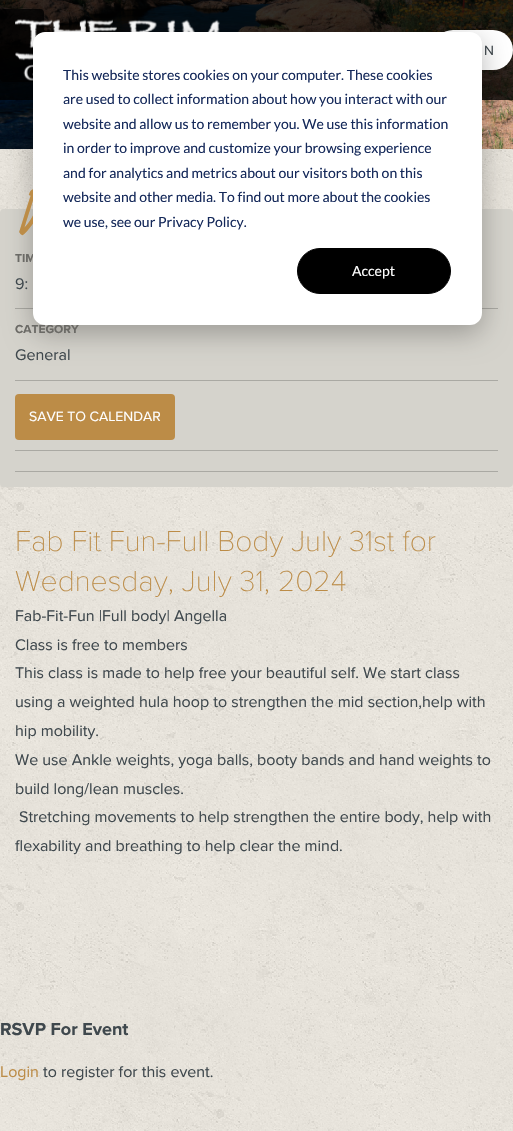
static SkFont makeFont(const char* family, int weight, float size, bool italic = false) {
  SkFontStyle style(weight, SkFontStyle::kNormal_Width,
    italic ? SkFontStyle::kItalic_Slant : SkFontStyle::kUpright_Slant);
  SkFont result(fontMgr->matchFamilyStyle(family, style), size);
  result.setSubpixel(true);
  return result;
}

static void text(SkCanvas* c, const char* s, float x, float y, const SkFont& font, SkColor color) {
  SkPaint ink(SkColor4f::FromColor(color));
  ink.setAntiAlias(true);
  c->drawString(s, x, y, font, ink);
}

static void box(SkCanvas* c, float l, float t, float r, float b, SkColor color) {
  SkPaint ink(SkColor4f::FromColor(color));
  ink.setAntiAlias(true);
  c->drawRect(SkRect::MakeLTRB(l, t, r, b), ink);
}

static void roundBox(SkCanvas* c, float l, float t, float r, float b, float radius, SkColor color) {
  SkPaint ink(SkColor4f::FromColor(color));
  ink.setAntiAlias(true);
  c->drawRoundRect(SkRect::MakeLTRB(l, t, r, b), radius, radius, ink);
}

static void picture(SkCanvas* c, const char* path, float l, float t, float r, float b) {
  auto image = SkImages::DeferredFromEncodedData(SkData::MakeFromFileName(path));
  c->drawImageRect(image, SkRect::MakeLTRB(l, t, r, b), SkSamplingOptions());
}

void draw(SkCanvas* c) {
  SkPaint paint;
  paint.setAntiAlias(true);
  c->clear(0xffffffff);
  picture(c, "img_01.png", 0, 0, 513, 149);
  roundBox(c, 0, 9, 44, 82, 4, 0xcc000000);
  box(c, 0, 0, 513, 100, 0xcc000000);
  picture(c, "img_02.png", 15, 19, 220, 81);
  roundBox(c, 433, 30, 513, 70, 20, 0xffffffff);
  SkFont face1 = makeFont("Proxima Nova", 400, 14);
  text(c, "N", 484, 55, face1, 0xff3f484d);
  picture(c, "img_03.png", 0, 149, 513, 956);
  roundBox(c, 0, 209, 513, 487, 4, 0xffd5d3cc);
  box(c, 15, 308, 498, 309, 0xffaaa9a3);
  paint.setColor(0x47000000);
  paint.setMaskFilter(SkMaskFilter::MakeBlur(kNormal_SkBlurStyle, 14));
  c->drawRoundRect(SkRect::MakeLTRB(33, 40, 482, 333), 12, 12, paint);
  paint.setMaskFilter(nullptr);
  SkFont face2 = makeFont("Kristi", 400, 80);
  text(c, "D", 15, 233, face2, 0xffbc8c47);
  SkFont face3 = makeFont("Proxima Nova", 700, 12);
  text(c, "TIM", 15, 262, face3, 0xff6b6a66);
  text(c, "CATEGORY", 15, 333, face3, 0xff6b6a66);
  roundBox(c, 33, 32, 482, 325, 12, 0xffffffff);
  SkFont face4 = makeFont("Lato", 400, 14);
  text(c, "This website stores cookies on your computer. These cookies", 63, 80, face4, 0xff15295a);
  text(c, "are used to collect information about how you interact with our", 63, 104, face4, 0xff15295a);
  text(c, "website and allow us to remember you. We use this information", 63, 129, face4, 0xff15295a);
  text(c, "in order to improve and customize your browsing experience", 63, 153, face4, 0xff15295a);
  text(c, "and for analytics and metrics about our visitors both on this", 63, 178, face4, 0xff15295a);
  text(c, "website and other media. To find out more about the cookies", 63, 202, face4, 0xff15295a);
  text(c, "we use, see our Privacy Policy.", 63, 227, face4, 0xff15295a);
  paint.setColor(0xff000000);
  c->drawRoundRect(SkRect::MakeLTRB(297.5f, 248.5f, 450.5f, 293.5f), 22.5f, 22.5f, paint);
  paint.setStyle(SkPaint::kStroke_Style);
  paint.setStrokeWidth(1);
  c->drawRoundRect(SkRect::MakeLTRB(297.5f, 248.5f, 450.5f, 293.5f), 22.5f, 22.5f, paint);
  text(c, "Accept", 352, 276, face4, 0xffffffff);
  SkFont face5 = makeFont("Proxima Nova", 400, 16);
  text(c, "9:", 15, 289, face5, 0xff3f484d);
  box(c, 15, 380, 498, 381, 0xffaaa9a3);
  text(c, "General", 15, 360, face5, 0xff3f484d);
  box(c, 15, 450, 498, 451, 0xffaaa9a3);
  roundBox(c, 15, 394, 175, 440, 4, 0xffbc8c47);
  text(c, "SAVE TO CALENDAR", 29, 421, face1, 0xffffffff);
  box(c, 15, 471, 498, 472, 0xffaaa9a3);
  SkFont face6 = makeFont("Proxima Nova", 100, 30);
  text(c, "Fab Fit Fun-Full Body July 31st for", 15, 551, face6, 0xffbc8c47);
  text(c, "Wednesday, July 31, 2024", 15, 591, face6, 0xffbc8c47);
  text(c, "Fab-Fit-Fun |Full body| Angella", 15, 621, face5, 0xff3f484d);
  text(c, "Class is free to members", 15, 650, face5, 0xff3f484d);
  text(c, "This class is made to help free your beautiful self. We start class", 15, 678, face5, 0xff3f484d);
  text(c, "using a weighted hula hoop to strengthen the mid section,help with", 15, 707, face5, 0xff3f484d);
  text(c, "hip mobility.", 15, 736, face5, 0xff3f484d);
  text(c, "We use Ankle weights, yoga balls, booty bands and hand weights to", 15, 765, face5, 0xff3f484d);
  text(c, "build long/lean muscles.", 15, 794, face5, 0xff3f484d);
  text(c, "Stretching movements to help strengthen the entire body, help with", 19, 822, face5, 0xff3f484d);
  text(c, "flexability and breathing to help clear the mind.", 15, 851, face5, 0xff3f484d);
  picture(c, "img_04.png", 0, 956, 513, 1131);
  SkFont face7 = makeFont("Proxima Nova", 700, 18);
  text(c, "RSVP For Event", 0, 1035, face7, 0xff3f484d);
  text(c, "Login", 0, 1077, face5, 0xffbc8c47);
  text(c, "to register for this event.", 43, 1077, face5, 0xff3f484d);
}
